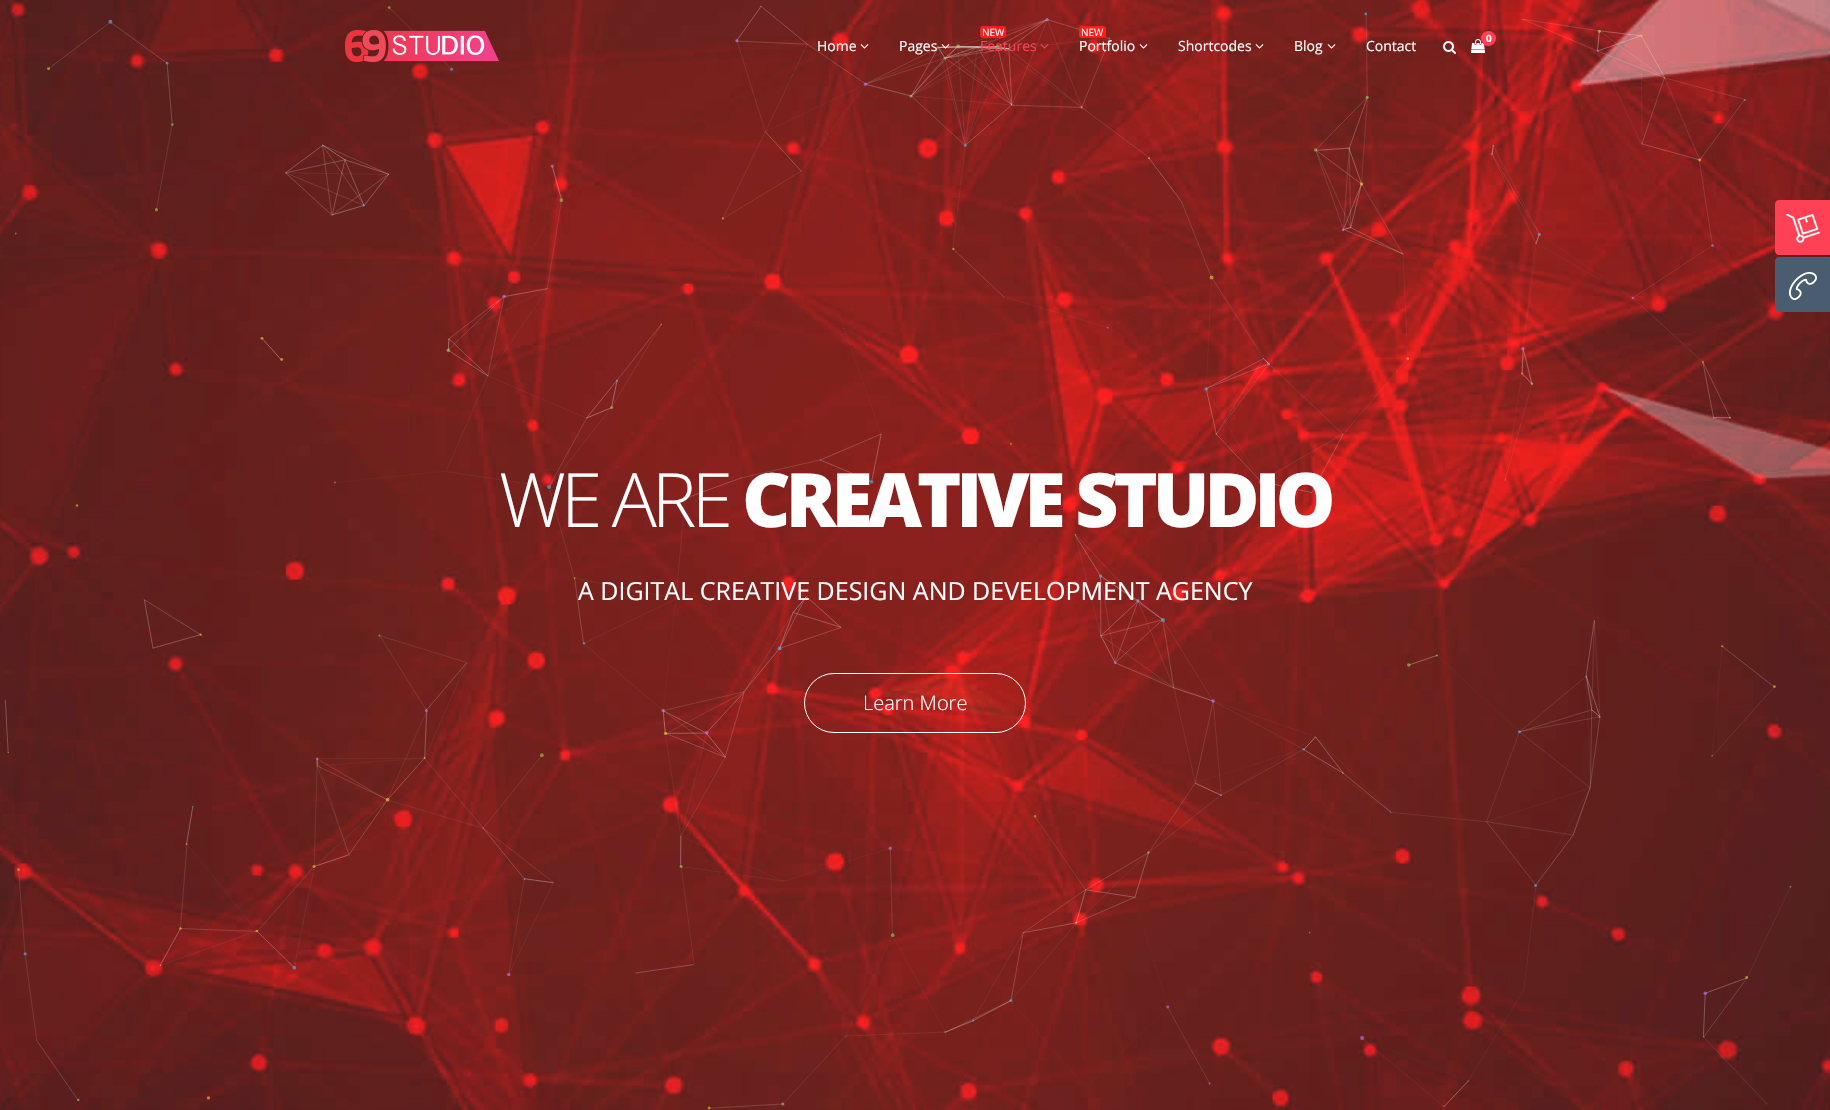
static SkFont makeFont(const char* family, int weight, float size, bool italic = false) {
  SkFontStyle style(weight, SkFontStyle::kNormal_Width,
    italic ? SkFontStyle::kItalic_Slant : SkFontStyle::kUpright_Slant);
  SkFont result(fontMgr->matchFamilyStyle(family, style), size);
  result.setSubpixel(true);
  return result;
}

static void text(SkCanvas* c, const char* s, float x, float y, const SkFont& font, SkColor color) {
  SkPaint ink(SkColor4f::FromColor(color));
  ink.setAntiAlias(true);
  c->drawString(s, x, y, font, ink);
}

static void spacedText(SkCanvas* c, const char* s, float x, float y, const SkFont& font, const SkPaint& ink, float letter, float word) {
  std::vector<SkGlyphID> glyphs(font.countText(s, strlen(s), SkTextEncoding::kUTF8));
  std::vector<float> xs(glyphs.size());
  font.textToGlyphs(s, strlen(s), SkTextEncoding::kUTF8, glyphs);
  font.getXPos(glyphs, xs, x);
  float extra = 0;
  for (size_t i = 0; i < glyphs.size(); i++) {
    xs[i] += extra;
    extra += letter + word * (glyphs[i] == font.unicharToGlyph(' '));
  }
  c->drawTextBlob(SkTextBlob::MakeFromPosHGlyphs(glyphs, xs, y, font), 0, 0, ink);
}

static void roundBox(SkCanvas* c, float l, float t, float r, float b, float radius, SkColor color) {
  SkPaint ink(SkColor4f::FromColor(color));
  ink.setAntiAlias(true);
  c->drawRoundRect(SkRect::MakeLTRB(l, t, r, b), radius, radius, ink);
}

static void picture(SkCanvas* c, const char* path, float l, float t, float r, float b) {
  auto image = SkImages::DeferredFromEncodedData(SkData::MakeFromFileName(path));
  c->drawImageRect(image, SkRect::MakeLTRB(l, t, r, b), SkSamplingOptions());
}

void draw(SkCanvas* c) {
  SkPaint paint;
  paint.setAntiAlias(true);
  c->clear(0xffffffff);
  picture(c, "img_12.png", 0, 0, 1830, 1110);
  picture(c, "img_13.png", 4, 5, 1792, 1110);
  picture(c, "img_01.png", 345, 30, 499, 62);
  SkFont face1 = makeFont("Open Sans", 400, 14);
  text(c, "Home", 817, 51, face1, 0xffffffff);
  picture(c, "img_02.png", 860, 44, 869, 49);
  text(c, "Pages", 899, 51, face1, 0xffffffff);
  picture(c, "img_03.png", 941, 44, 950, 49);
  roundBox(c, 980, 26, 1006, 38, 3, 0xffff1c1c);
  SkFont face2 = makeFont("Open Sans", 400, 10);
  text(c, "NEW", 982, 36, face2, 0xffffffff);
  text(c, "Features", 980, 51, face1, 0xffff4155);
  picture(c, "img_04.png", 1040, 44, 1049, 49);
  roundBox(c, 1079, 26, 1106, 38, 3, 0xffff1c1c);
  text(c, "NEW", 1081, 36, face2, 0xffffffff);
  text(c, "Portfolio", 1079, 51, face1, 0xffffffff);
  picture(c, "img_05.png", 1139, 44, 1148, 49);
  text(c, "Shortcodes", 1178, 51, face1, 0xffffffff);
  picture(c, "img_06.png", 1255, 44, 1264, 49);
  text(c, "Blog", 1294, 51, face1, 0xffffffff);
  picture(c, "img_07.png", 1327, 44, 1336, 49);
  text(c, "Contact", 1366, 51, face1, 0xffffffff);
  picture(c, "img_08.png", 1471, 39, 1485, 53);
  paint.setColor(0xffff4155);
  c->drawCircle(1488.5f, 38.5f, 7.5f, paint);
  SkFont face3 = makeFont("Open Sans", 700, 10);
  text(c, "0", 1486, 42, face3, 0xffffffff);
  picture(c, "img_09.png", 1443, 41, 1456, 54);
  c->drawPath(SkPathBuilder().moveTo(1779, 200).lineTo(1830, 200).lineTo(1830, 255).lineTo(1779, 255).cubicTo(1777, 255, 1775, 253, 1775, 251).lineTo(1775, 204).cubicTo(1775, 202, 1777, 200, 1779, 200).close().detach(), paint);
  picture(c, "img_10.png", 1786, 214, 1820, 243);
  paint.setColor(0xff4a5d70);
  c->drawPath(SkPathBuilder().moveTo(1779, 257).lineTo(1830, 257).lineTo(1830, 312).lineTo(1779, 312).cubicTo(1777, 312, 1775, 310, 1775, 308).lineTo(1775, 261).cubicTo(1775, 259, 1777, 257, 1779, 257).close().detach(), paint);
  picture(c, "img_11.png", 1789, 272, 1817, 300);
  SkFont face4 = makeFont("Open Sans", 300, 75);
  paint.setColor(0xffffffff);
  spacedText(c, "WE ARE", 499, 527, face4, paint, -5, 0);
  SkFont face5 = makeFont("Open Sans", 800, 75);
  spacedText(c, "CREATIVE STUDIO", 742, 527, face5, paint, -5, 0);
  SkFont face6 = makeFont("Open Sans", 400, 25);
  text(c, "A DIGITAL CREATIVE DESIGN AND DEVELOPMENT AGENCY", 578, 600, face6, 0xffffffff);
  paint.setStyle(SkPaint::kStroke_Style);
  paint.setStrokeWidth(1);
  c->drawRoundRect(SkRect::MakeLTRB(804.5f, 673.5f, 1025.5f, 732.5f), 29.5f, 29.5f, paint);
  SkFont face7 = makeFont("Open Sans", 300, 20);
  text(c, "Learn More", 863, 710, face7, 0xffffffff);
}
